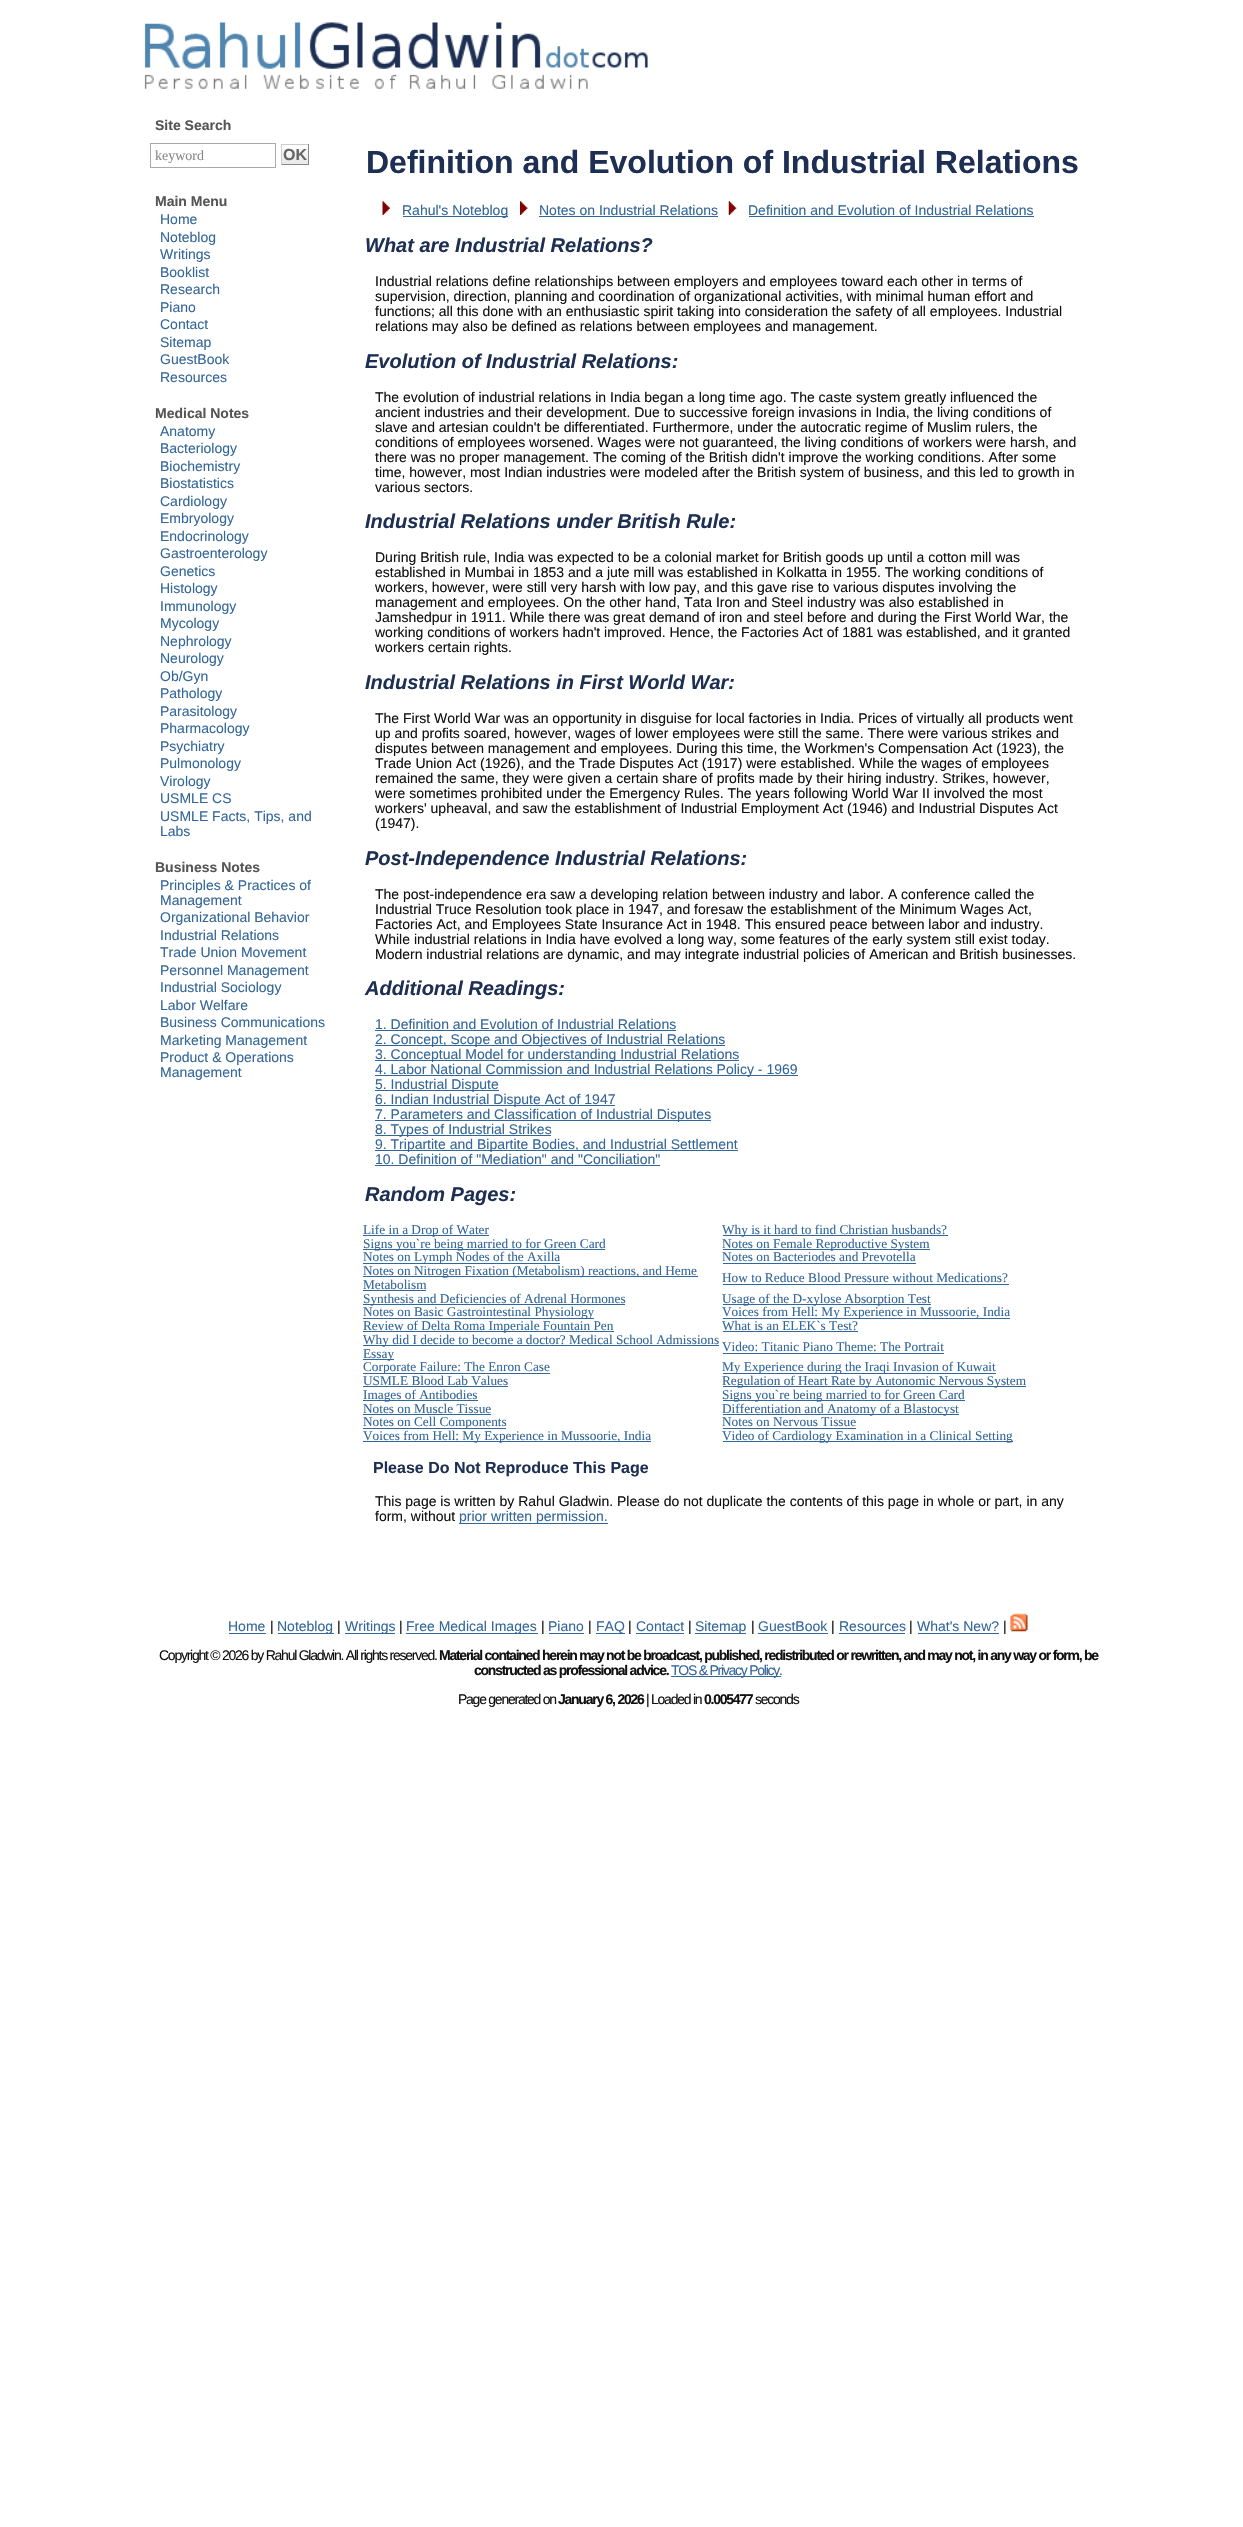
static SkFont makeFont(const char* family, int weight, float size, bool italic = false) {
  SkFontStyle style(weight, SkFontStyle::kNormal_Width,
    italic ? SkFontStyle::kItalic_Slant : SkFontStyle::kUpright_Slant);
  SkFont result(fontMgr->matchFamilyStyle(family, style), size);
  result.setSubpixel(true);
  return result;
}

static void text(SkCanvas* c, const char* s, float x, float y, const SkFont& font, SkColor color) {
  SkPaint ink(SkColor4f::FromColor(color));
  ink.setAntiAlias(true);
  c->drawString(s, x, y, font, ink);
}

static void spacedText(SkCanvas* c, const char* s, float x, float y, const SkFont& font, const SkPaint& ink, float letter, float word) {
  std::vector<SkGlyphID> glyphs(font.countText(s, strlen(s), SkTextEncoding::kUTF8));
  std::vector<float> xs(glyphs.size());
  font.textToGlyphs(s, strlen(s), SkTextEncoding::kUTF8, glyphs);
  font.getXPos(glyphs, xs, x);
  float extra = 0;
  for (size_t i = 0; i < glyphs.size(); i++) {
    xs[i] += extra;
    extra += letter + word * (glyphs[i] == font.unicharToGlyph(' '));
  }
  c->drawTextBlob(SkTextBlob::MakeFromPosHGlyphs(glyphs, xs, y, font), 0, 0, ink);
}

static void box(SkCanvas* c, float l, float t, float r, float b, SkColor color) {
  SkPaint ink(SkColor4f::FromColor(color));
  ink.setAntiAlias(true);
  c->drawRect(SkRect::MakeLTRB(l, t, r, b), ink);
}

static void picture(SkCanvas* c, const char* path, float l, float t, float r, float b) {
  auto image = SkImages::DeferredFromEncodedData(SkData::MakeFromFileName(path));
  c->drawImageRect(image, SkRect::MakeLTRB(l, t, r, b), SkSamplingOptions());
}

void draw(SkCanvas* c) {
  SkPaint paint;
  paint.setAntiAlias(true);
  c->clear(0xffffffff);
  picture(c, "img_01.png", 144, 22, 648, 89);
  SkFont face1 = makeFont("Liberation Sans", 700, 14);
  text(c, "Site Search", 155, 130, face1, 0xff555555);
  paint.setStyle(SkPaint::kStroke_Style);
  paint.setStrokeWidth(1);
  paint.setColor(0xffaaaaaa);
  c->drawRect(SkRect::MakeLTRB(150.5f, 143.5f, 275.5f, 167.5f), paint);
  SkFont face2 = makeFont("Liberation Serif", 400, 14);
  text(c, "keyword", 155, 160, face2, 0xff888888);
  picture(c, "img_02.png", 282, 149, 308, 164);
  box(c, 281, 144, 309, 145, 0xffcccccc);
  box(c, 308, 144, 309, 165, 0xff888888);
  box(c, 281, 164, 309, 165, 0xff888888);
  box(c, 281, 144, 282, 165, 0xffcccccc);
  SkFont face3 = makeFont("Liberation Sans", 700, 16);
  text(c, "OK", 283, 160, face3, 0xff666666);
  text(c, "Main Menu", 155, 206, face1, 0xff555555);
  SkFont face4 = makeFont("Liberation Sans", 400, 14);
  text(c, "Home", 160, 224, face4, 0xff336699);
  text(c, "Noteblog", 160, 242, face4, 0xff336699);
  text(c, "Writings", 160, 259, face4, 0xff336699);
  text(c, "Booklist", 160, 277, face4, 0xff336699);
  text(c, "Research", 160, 294, face4, 0xff336699);
  text(c, "Piano", 160, 312, face4, 0xff336699);
  text(c, "Contact", 160, 329, face4, 0xff336699);
  text(c, "Sitemap", 160, 347, face4, 0xff336699);
  text(c, "GuestBook", 160, 364, face4, 0xff336699);
  text(c, "Resources", 160, 382, face4, 0xff336699);
  text(c, "Medical Notes", 155, 418, face1, 0xff555555);
  text(c, "Anatomy", 160, 436, face4, 0xff336699);
  text(c, "Bacteriology", 160, 453, face4, 0xff336699);
  text(c, "Biochemistry", 160, 471, face4, 0xff336699);
  text(c, "Biostatistics", 160, 488, face4, 0xff336699);
  text(c, "Cardiology", 160, 506, face4, 0xff336699);
  text(c, "Embryology", 160, 523, face4, 0xff336699);
  text(c, "Endocrinology", 160, 541, face4, 0xff336699);
  text(c, "Gastroenterology", 160, 558, face4, 0xff336699);
  text(c, "Genetics", 160, 576, face4, 0xff336699);
  text(c, "Histology", 160, 593, face4, 0xff336699);
  text(c, "Immunology", 160, 611, face4, 0xff336699);
  text(c, "Mycology", 160, 628, face4, 0xff336699);
  text(c, "Nephrology", 160, 646, face4, 0xff336699);
  text(c, "Neurology", 160, 663, face4, 0xff336699);
  text(c, "Ob/Gyn", 160, 681, face4, 0xff336699);
  text(c, "Pathology", 160, 698, face4, 0xff336699);
  text(c, "Parasitology", 160, 716, face4, 0xff336699);
  text(c, "Pharmacology", 160, 733, face4, 0xff336699);
  text(c, "Psychiatry", 160, 751, face4, 0xff336699);
  text(c, "Pulmonology", 160, 768, face4, 0xff336699);
  text(c, "Virology", 160, 786, face4, 0xff336699);
  text(c, "USMLE CS", 160, 803, face4, 0xff336699);
  text(c, "USMLE Facts, Tips, and", 160, 821, face4, 0xff336699);
  text(c, "Labs", 160, 836, face4, 0xff336699);
  text(c, "Business Notes", 155, 872, face1, 0xff555555);
  text(c, "Principles & Practices of", 160, 890, face4, 0xff336699);
  text(c, "Management", 160, 905, face4, 0xff336699);
  text(c, "Organizational Behavior", 160, 922, face4, 0xff336699);
  text(c, "Industrial Relations", 160, 940, face4, 0xff336699);
  text(c, "Trade Union Movement", 160, 957, face4, 0xff336699);
  text(c, "Personnel Management", 160, 975, face4, 0xff336699);
  text(c, "Industrial Sociology", 160, 992, face4, 0xff336699);
  text(c, "Labor Welfare", 160, 1010, face4, 0xff336699);
  text(c, "Business Communications", 160, 1027, face4, 0xff336699);
  text(c, "Marketing Management", 160, 1045, face4, 0xff336699);
  text(c, "Product & Operations", 160, 1062, face4, 0xff336699);
  text(c, "Management", 160, 1077, face4, 0xff336699);
  SkFont face5 = makeFont("Liberation Sans", 700, 32);
  text(c, "Definition and Evolution of Industrial Relations", 366, 173, face5, 0xff1d2f53);
  picture(c, "img_03.png", 382, 201, 390, 215);
  box(c, 403, 216, 508, 217, 0xff336699);
  text(c, "Rahul's Noteblog", 402, 215, face4, 0xff336699);
  picture(c, "img_04.png", 520, 201, 528, 215);
  text(c, "Notes on Industrial Relations", 539, 215, face4, 0xff336699);
  box(c, 539, 216, 718, 217, 0xff336699);
  picture(c, "img_05.png", 728, 201, 737, 215);
  text(c, "Definition and Evolution of Industrial Relations", 748, 215, face4, 0xff336699);
  box(c, 749, 216, 1034, 217, 0xff336699);
  SkFont face6 = makeFont("Liberation Sans", 700, 20, true);
  text(c, "What are Industrial Relations?", 365, 252, face6, 0xff1d2f53);
  text(c, "Industrial relations define relationships between employers and employees toward each other in terms of", 375, 286, face4, 0xff111111);
  text(c, "supervision, direction, planning and coordination of organizational activities, with minimal human effort and", 375, 301, face4, 0xff111111);
  text(c, "functions; all this done with an enthusiastic spirit taking into consideration the safety of all employees. Industrial", 375, 316, face4, 0xff111111);
  text(c, "relations may also be defined as relations between employees and management.", 375, 331, face4, 0xff111111);
  text(c, "Evolution of Industrial Relations:", 365, 368, face6, 0xff1d2f53);
  text(c, "The evolution of industrial relations in India began a long time ago. The caste system greatly influenced the", 375, 402, face4, 0xff111111);
  text(c, "ancient industries and their development. Due to successive foreign invasions in India, the living conditions of", 375, 417, face4, 0xff111111);
  text(c, "slave and artesian couldn't be differentiated. Furthermore, under the autocratic regime of Muslim rulers, the", 375, 432, face4, 0xff111111);
  text(c, "conditions of employees worsened. Wages were not guaranteed, the living conditions of workers were harsh, and", 375, 447, face4, 0xff111111);
  text(c, "there was no proper management. The coming of the British didn't improve the working conditions. After some", 375, 462, face4, 0xff111111);
  text(c, "time, however, most Indian industries were modeled after the British system of business, and this led to growth in", 375, 477, face4, 0xff111111);
  text(c, "various sectors.", 375, 492, face4, 0xff111111);
  text(c, "Industrial Relations under British Rule:", 365, 528, face6, 0xff1d2f53);
  text(c, "During British rule, India was expected to be a colonial market for British goods up until a cotton mill was", 375, 562, face4, 0xff111111);
  text(c, "established in Mumbai in 1853 and a jute mill was established in Kolkatta in 1955. The working conditions of", 375, 577, face4, 0xff111111);
  text(c, "workers, however, were still very harsh with low pay, and this gave rise to various disputes involving the", 375, 592, face4, 0xff111111);
  text(c, "management and employees. On the other hand, Tata Iron and Steel industry was also established in", 375, 607, face4, 0xff111111);
  text(c, "Jamshedpur in 1911. While there was great demand of iron and steel before and during the First World War, the", 375, 622, face4, 0xff111111);
  text(c, "working conditions of workers hadn't improved. Hence, the Factories Act of 1881 was established, and it granted", 375, 637, face4, 0xff111111);
  text(c, "workers certain rights.", 375, 652, face4, 0xff111111);
  text(c, "Industrial Relations in First World War:", 365, 689, face6, 0xff1d2f53);
  text(c, "The First World War was an opportunity in disguise for local factories in India. Prices of virtually all products went", 375, 723, face4, 0xff111111);
  text(c, "up and profits soared, however, wages of lower employees were still the same. There were various strikes and", 375, 738, face4, 0xff111111);
  text(c, "disputes between management and employees. During this time, the Workmen's Compensation Act (1923), the", 375, 753, face4, 0xff111111);
  text(c, "Trade Union Act (1926), and the Trade Disputes Act (1917) were established. While the wages of employees", 375, 768, face4, 0xff111111);
  text(c, "remained the same, they were given a certain share of profits made by their hiring industry. Strikes, however,", 375, 783, face4, 0xff111111);
  text(c, "were sometimes prohibited under the Emergency Rules. The years following World War II involved the most", 375, 798, face4, 0xff111111);
  text(c, "workers' upheaval, and saw the establishment of Industrial Employment Act (1946) and Industrial Disputes Act", 375, 813, face4, 0xff111111);
  text(c, "(1947).", 375, 828, face4, 0xff111111);
  text(c, "Post-Independence Industrial Relations:", 365, 865, face6, 0xff1d2f53);
  text(c, "The post-independence era saw a developing relation between industry and labor. A conference called the", 375, 899, face4, 0xff111111);
  text(c, "Industrial Truce Resolution took place in 1947, and foresaw the establishment of the Minimum Wages Act,", 375, 914, face4, 0xff111111);
  text(c, "Factories Act, and Employees State Insurance Act in 1948. This ensured peace between labor and industry.", 375, 929, face4, 0xff111111);
  text(c, "While industrial relations in India have evolved a long way, some features of the early system still exist today.", 375, 944, face4, 0xff111111);
  text(c, "Modern industrial relations are dynamic, and may integrate industrial policies of American and British businesses.", 375, 959, face4, 0xff111111);
  text(c, "Additional Readings:", 365, 995, face6, 0xff1d2f53);
  text(c, "1. Definition and Evolution of Industrial Relations", 375, 1029, face4, 0xff336699);
  box(c, 375, 1030, 676, 1031, 0xff336699);
  box(c, 375, 1045, 725, 1046, 0xff336699);
  text(c, "2. Concept, Scope and Objectives of Industrial Relations", 375, 1044, face4, 0xff336699);
  box(c, 375, 1060, 739, 1061, 0xff336699);
  text(c, "3. Conceptual Model for understanding Industrial Relations", 375, 1059, face4, 0xff336699);
  box(c, 375, 1075, 798, 1076, 0xff336699);
  text(c, "4. Labor National Commission and Industrial Relations Policy - 1969", 375, 1074, face4, 0xff336699);
  box(c, 375, 1090, 499, 1091, 0xff336699);
  text(c, "5. Industrial Dispute", 375, 1089, face4, 0xff336699);
  box(c, 375, 1105, 615, 1106, 0xff336699);
  text(c, "6. Indian Industrial Dispute Act of 1947", 375, 1104, face4, 0xff336699);
  box(c, 375, 1120, 711, 1121, 0xff336699);
  text(c, "7. Parameters and Classification of Industrial Disputes", 375, 1119, face4, 0xff336699);
  box(c, 375, 1135, 551, 1136, 0xff336699);
  text(c, "8. Types of Industrial Strikes", 375, 1134, face4, 0xff336699);
  box(c, 375, 1150, 738, 1151, 0xff336699);
  text(c, "9. Tripartite and Bipartite Bodies, and Industrial Settlement", 375, 1149, face4, 0xff336699);
  text(c, "10. Definition of \"Mediation\" and \"Conciliation\"", 375, 1164, face4, 0xff336699);
  box(c, 375, 1165, 660, 1166, 0xff336699);
  text(c, "Random Pages:", 365, 1201, face6, 0xff1d2f53);
  box(c, 363, 1235, 489, 1236, 0xff336699);
  SkFont face7 = makeFont("Liberation Serif", 400, 13.3f);
  text(c, "Life in a Drop of Water", 363, 1234, face7, 0xff336699);
  box(c, 723, 1235, 948, 1236, 0xff336699);
  text(c, "Why is it hard to find Christian husbands?", 722, 1234, face7, 0xff336699);
  box(c, 363, 1249, 605, 1250, 0xff336699);
  text(c, "Signs you`re being married to for Green Card", 363, 1248, face7, 0xff336699);
  box(c, 723, 1249, 930, 1250, 0xff336699);
  text(c, "Notes on Female Reproductive System", 722, 1248, face7, 0xff336699);
  box(c, 363, 1263, 560, 1264, 0xff336699);
  text(c, "Notes on Lymph Nodes of the Axilla", 363, 1261, face7, 0xff336699);
  text(c, "Notes on Bacteriodes and Prevotella", 722, 1261, face7, 0xff336699);
  box(c, 723, 1263, 916, 1264, 0xff336699);
  box(c, 363, 1276, 698, 1277, 0xff336699);
  text(c, "Notes on Nitrogen Fixation (Metabolism) reactions, and Heme", 363, 1275, face7, 0xff336699);
  text(c, "Metabolism", 363, 1289, face7, 0xff336699);
  box(c, 363, 1290, 426, 1291, 0xff336699);
  text(c, "How to Reduce Blood Pressure without Medications?", 722, 1282, face7, 0xff336699);
  box(c, 723, 1284, 1009, 1285, 0xff336699);
  box(c, 363, 1304, 625, 1305, 0xff336699);
  text(c, "Synthesis and Deficiencies of Adrenal Hormones", 363, 1303, face7, 0xff336699);
  box(c, 723, 1304, 931, 1305, 0xff336699);
  text(c, "Usage of the D-xylose Absorption Test", 722, 1303, face7, 0xff336699);
  box(c, 363, 1318, 594, 1319, 0xff336699);
  text(c, "Notes on Basic Gastrointestinal Physiology", 363, 1316, face7, 0xff336699);
  box(c, 723, 1318, 1010, 1319, 0xff336699);
  text(c, "Voices from Hell: My Experience in Mussoorie, India", 722, 1316, face7, 0xff336699);
  box(c, 363, 1331, 614, 1332, 0xff336699);
  text(c, "Review of Delta Roma Imperiale Fountain Pen", 363, 1330, face7, 0xff336699);
  text(c, "What is an ELEK`s Test?", 722, 1330, face7, 0xff336699);
  box(c, 723, 1331, 858, 1332, 0xff336699);
  box(c, 363, 1345, 719, 1346, 0xff336699);
  text(c, "Why did I decide to become a doctor? Medical School Admissions", 363, 1344, face7, 0xff336699);
  box(c, 363, 1359, 394, 1360, 0xff336699);
  text(c, "Essay", 363, 1358, face7, 0xff336699);
  text(c, "Video: Titanic Piano Theme: The Portrait", 722, 1351, face7, 0xff336699);
  box(c, 723, 1353, 944, 1354, 0xff336699);
  box(c, 363, 1373, 550, 1374, 0xff336699);
  text(c, "Corporate Failure: The Enron Case", 363, 1371, face7, 0xff336699);
  box(c, 723, 1373, 996, 1374, 0xff336699);
  text(c, "My Experience during the Iraqi Invasion of Kuwait", 722, 1371, face7, 0xff336699);
  text(c, "USMLE Blood Lab Values", 363, 1385, face7, 0xff336699);
  box(c, 363, 1386, 508, 1387, 0xff336699);
  box(c, 723, 1386, 1026, 1387, 0xff336699);
  text(c, "Regulation of Heart Rate by Autonomic Nervous System", 722, 1385, face7, 0xff336699);
  box(c, 363, 1400, 478, 1401, 0xff336699);
  text(c, "Images of Antibodies", 363, 1399, face7, 0xff336699);
  box(c, 723, 1400, 965, 1401, 0xff336699);
  text(c, "Signs you`re being married to for Green Card", 722, 1399, face7, 0xff336699);
  text(c, "Notes on Muscle Tissue", 363, 1413, face7, 0xff336699);
  box(c, 363, 1414, 491, 1415, 0xff336699);
  box(c, 723, 1414, 959, 1415, 0xff336699);
  text(c, "Differentiation and Anatomy of a Blastocyst", 722, 1413, face7, 0xff336699);
  box(c, 363, 1428, 506, 1429, 0xff336699);
  text(c, "Notes on Cell Components", 363, 1426, face7, 0xff336699);
  text(c, "Notes on Nervous Tissue", 722, 1426, face7, 0xff336699);
  box(c, 723, 1428, 856, 1429, 0xff336699);
  box(c, 363, 1441, 651, 1442, 0xff336699);
  text(c, "Voices from Hell: My Experience in Mussoorie, India", 363, 1440, face7, 0xff336699);
  box(c, 723, 1441, 1013, 1442, 0xff336699);
  text(c, "Video of Cardiology Examination in a Clinical Setting", 722, 1440, face7, 0xff336699);
  text(c, "Please Do Not Reproduce This Page", 373, 1473, face3, 0xff1d2f53);
  text(c, "This page is written by Rahul Gladwin. Please do not duplicate the contents of this page in whole or part, in any", 375, 1506, face4, 0xff111111);
  text(c, "form, without", 375, 1521, face4, 0xff111111);
  box(c, 459, 1523, 608, 1524, 0xff336699);
  text(c, "prior written permission.", 459, 1521, face4, 0xff336699);
  text(c, "Home", 228, 1631, face4, 0xff336699);
  box(c, 229, 1633, 266, 1634, 0xff336699);
  text(c, "|", 270, 1631, face4, 0xff111111);
  box(c, 278, 1633, 334, 1634, 0xff336699);
  text(c, "Noteblog", 277, 1631, face4, 0xff336699);
  text(c, "|", 337, 1631, face4, 0xff111111);
  box(c, 345, 1633, 395, 1634, 0xff336699);
  text(c, "Writings", 345, 1631, face4, 0xff336699);
  text(c, "|", 399, 1631, face4, 0xff111111);
  box(c, 406, 1633, 538, 1634, 0xff336699);
  text(c, "Free Medical Images", 406, 1631, face4, 0xff336699);
  text(c, "|", 541, 1631, face4, 0xff111111);
  text(c, "Piano", 548, 1631, face4, 0xff336699);
  box(c, 549, 1633, 584, 1634, 0xff336699);
  text(c, "|", 588, 1631, face4, 0xff111111);
  box(c, 596, 1633, 625, 1634, 0xff336699);
  text(c, "FAQ", 596, 1631, face4, 0xff336699);
  text(c, "|", 628, 1631, face4, 0xff111111);
  text(c, "Contact", 636, 1631, face4, 0xff336699);
  box(c, 636, 1633, 684, 1634, 0xff336699);
  text(c, "|", 688, 1631, face4, 0xff111111);
  box(c, 695, 1633, 746, 1634, 0xff336699);
  text(c, "Sitemap", 695, 1631, face4, 0xff336699);
  text(c, "|", 751, 1631, face4, 0xff111111);
  text(c, "GuestBook", 758, 1631, face4, 0xff336699);
  box(c, 758, 1633, 828, 1634, 0xff336699);
  text(c, "|", 831, 1631, face4, 0xff111111);
  text(c, "Resources", 839, 1631, face4, 0xff336699);
  box(c, 839, 1633, 905, 1634, 0xff336699);
  text(c, "|", 909, 1631, face4, 0xff111111);
  text(c, "What's New?", 917, 1631, face4, 0xff336699);
  box(c, 918, 1633, 999, 1634, 0xff336699);
  text(c, "|", 1003, 1631, face4, 0xff111111);
  picture(c, "img_06.png", 1010, 1613, 1028, 1632);
  paint.setStyle(SkPaint::kFill_Style);
  paint.setColor(0xff111111);
  spacedText(c, "Copyright © 2026 by Rahul Gladwin. All rights reserved.", 159, 1660, face4, paint, -1.25f, 0);
  spacedText(c, "Material contained herein may not be broadcast, published, redistributed or rewritten, and may not, in any way or form, be", 439, 1660, face1, paint, -1.25f, 0);
  spacedText(c, "constructed as professional advice.", 474, 1675, face1, paint, -1.25f, 0);
  box(c, 671, 1676, 781, 1677, 0xff336699);
  paint.setColor(0xff336699);
  spacedText(c, "TOS & Privacy Policy.", 671, 1675, face4, paint, -1.25f, 0);
  paint.setColor(0xff111111);
  spacedText(c, "Page generated on", 458, 1704, face4, paint, -1.25f, 0);
  spacedText(c, "January 6, 2026", 558, 1704, face1, paint, -1.25f, 0);
  spacedText(c, "| Loaded in", 646, 1704, face4, paint, -1.25f, 0);
  spacedText(c, "0.005477", 704, 1704, face1, paint, -1.25f, 0);
  spacedText(c, "seconds", 755, 1704, face4, paint, -1.25f, 0);
}
